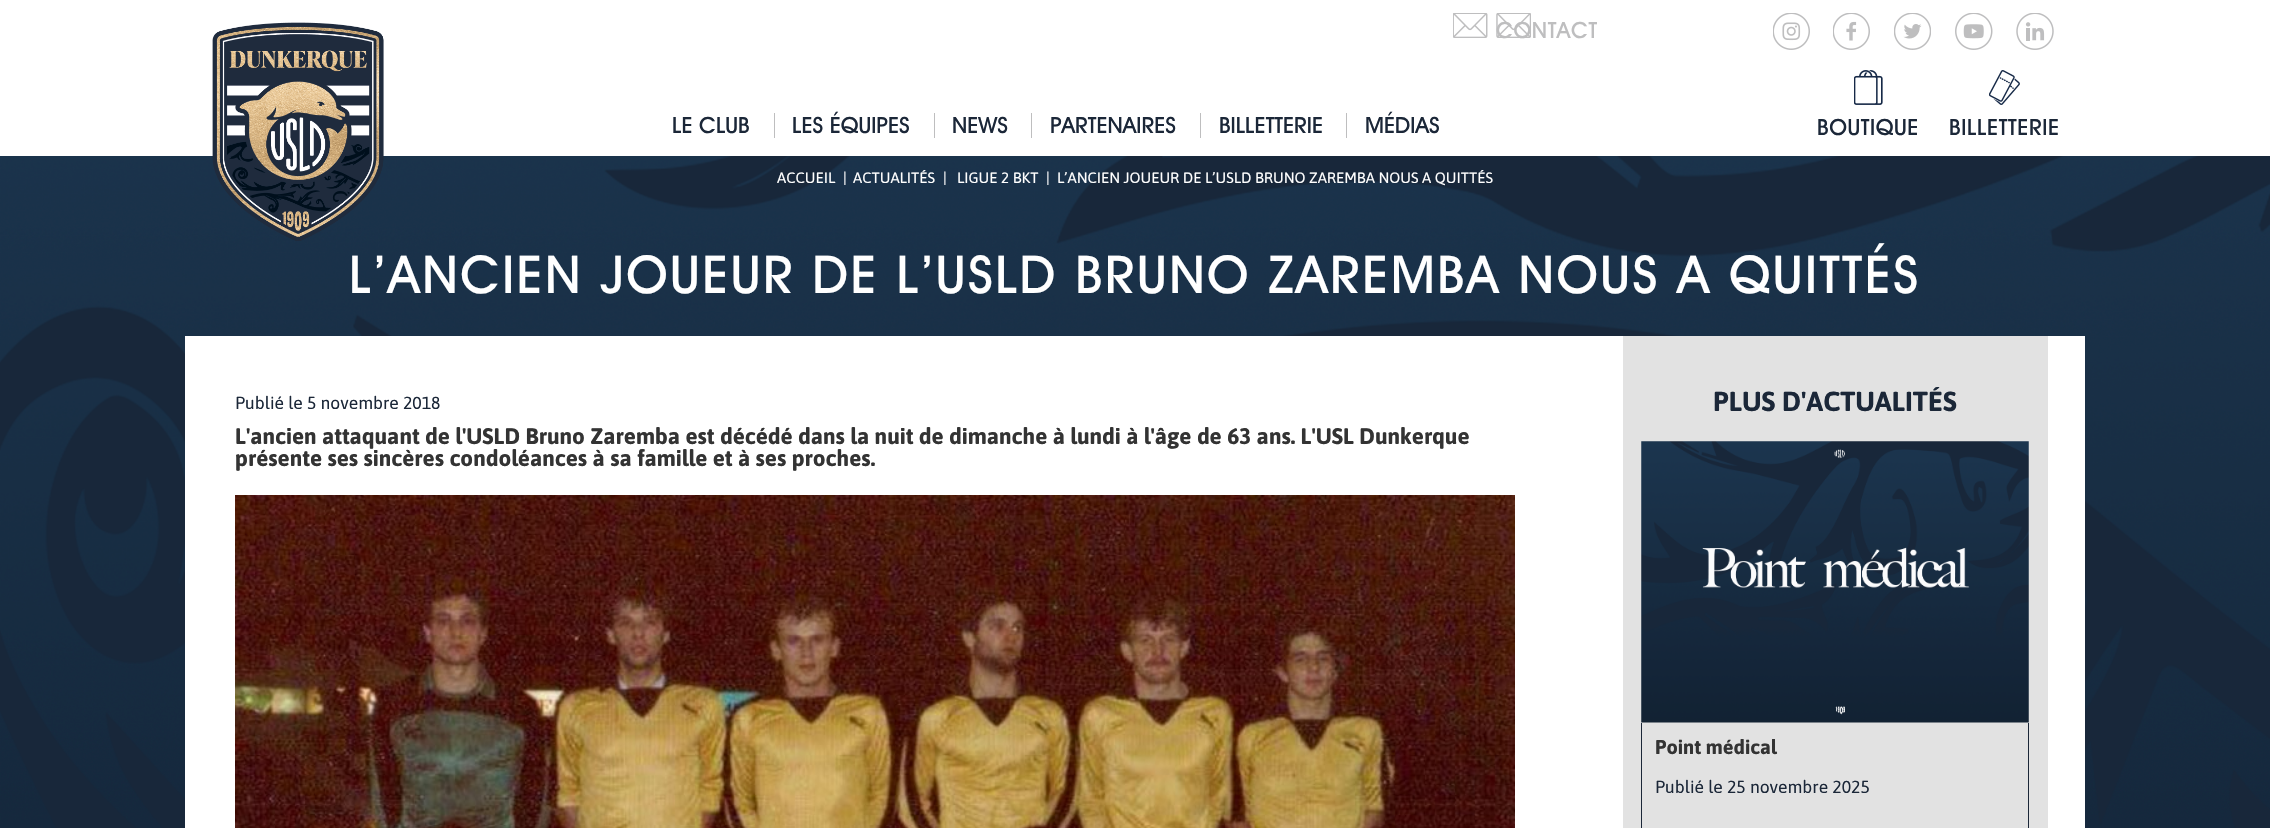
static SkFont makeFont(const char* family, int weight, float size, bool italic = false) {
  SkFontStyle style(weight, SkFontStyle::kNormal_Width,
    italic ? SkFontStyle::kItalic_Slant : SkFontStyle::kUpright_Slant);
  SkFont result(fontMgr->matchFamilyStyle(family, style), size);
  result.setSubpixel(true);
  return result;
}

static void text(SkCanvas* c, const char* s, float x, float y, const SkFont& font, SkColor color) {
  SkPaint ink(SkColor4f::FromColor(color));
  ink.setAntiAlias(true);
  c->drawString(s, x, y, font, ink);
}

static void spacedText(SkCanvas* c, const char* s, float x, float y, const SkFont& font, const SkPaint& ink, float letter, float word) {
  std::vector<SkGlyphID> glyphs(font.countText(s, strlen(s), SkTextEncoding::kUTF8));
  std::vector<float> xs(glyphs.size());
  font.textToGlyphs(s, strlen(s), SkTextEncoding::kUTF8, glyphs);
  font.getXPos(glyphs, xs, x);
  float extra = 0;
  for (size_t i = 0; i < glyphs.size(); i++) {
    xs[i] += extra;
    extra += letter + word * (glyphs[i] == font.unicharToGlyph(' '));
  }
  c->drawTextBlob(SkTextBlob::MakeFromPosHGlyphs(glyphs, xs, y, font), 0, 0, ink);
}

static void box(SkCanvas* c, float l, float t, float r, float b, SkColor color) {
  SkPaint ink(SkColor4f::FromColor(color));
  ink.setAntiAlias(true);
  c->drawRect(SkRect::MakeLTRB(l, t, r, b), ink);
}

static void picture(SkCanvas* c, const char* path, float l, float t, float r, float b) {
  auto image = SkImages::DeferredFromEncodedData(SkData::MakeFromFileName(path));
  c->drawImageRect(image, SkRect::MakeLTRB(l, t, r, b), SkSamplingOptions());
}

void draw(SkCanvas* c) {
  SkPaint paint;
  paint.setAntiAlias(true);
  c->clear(0xffffffff);
  picture(c, "img_01.png", 0, 156, 2270, 828);
  picture(c, "img_02.png", 212, 22, 384, 241);
  picture(c, "img_03.png", 1453, 13, 1531, 38);
  SkFont face1 = makeFont("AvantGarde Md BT", 500, 22.5f);
  paint.setColor(0xffbebebf);
  spacedText(c, "CONTACT", 1496, 38, face1, paint, 0.6f, 0);
  text(c, "LE CLUB", 672, 133, face1, 0xff1b2738);
  box(c, 774, 113, 775, 138, 0xffbebebf);
  text(c, "LES ÉQUIPES", 792, 133, face1, 0xff1b2738);
  box(c, 934, 113, 935, 138, 0xffbebebf);
  text(c, "NEWS", 952, 133, face1, 0xff1b2738);
  box(c, 1031, 113, 1032, 138, 0xffbebebf);
  text(c, "PARTENAIRES", 1050, 133, face1, 0xff1b2738);
  box(c, 1200, 113, 1201, 138, 0xffbebebf);
  text(c, "BILLETTERIE", 1219, 133, face1, 0xff1b2738);
  box(c, 1346, 113, 1347, 138, 0xffbebebf);
  text(c, "MÉDIAS", 1365, 133, face1, 0xff1b2738);
  picture(c, "img_04.png", 1773, 13, 1810, 50);
  picture(c, "img_05.png", 1833, 13, 1870, 50);
  picture(c, "img_06.png", 1894, 13, 1931, 50);
  picture(c, "img_07.png", 1955, 13, 1993, 50);
  picture(c, "img_08.png", 2016, 13, 2054, 50);
  picture(c, "img_09.png", 1854, 70, 1883, 105);
  paint.setColor(0xff1b2738);
  spacedText(c, "BOUTIQUE", 1817, 135, face1, paint, 0.6f, 0);
  picture(c, "img_10.png", 1989, 70, 2020, 105);
  spacedText(c, "BILLETTERIE", 1949, 135, face1, paint, 0.6f, 0);
  SkFont face2 = makeFont("Asap", 400, 15);
  text(c, "ACCUEIL", 777, 183, face2, 0xffffffff);
  text(c, "|", 843, 183, face2, 0xffffffff);
  text(c, "ACTUALITÉS", 853, 183, face2, 0xffffffff);
  text(c, "|", 943, 183, face2, 0xffffffff);
  text(c, "LIGUE 2 BKT", 957, 183, face2, 0xffffffff);
  text(c, "|", 1046, 183, face2, 0xffffffff);
  text(c, "L’ANCIEN JOUEUR DE L’USLD BRUNO ZAREMBA NOUS A QUITTÉS", 1057, 183, face2, 0xffffffff);
  SkFont face3 = makeFont("AvantGarde Md BT", 500, 52.5f);
  paint.setColor(0xffffffff);
  spacedText(c, "L’ANCIEN JOUEUR DE L’USLD BRUNO ZAREMBA NOUS A QUITTÉS", 349, 293, face3, paint, 2.5f, 0);
  box(c, 185, 336, 2085, 828, 0xffffffff);
  SkFont face4 = makeFont("Asap", 400, 17.5f);
  text(c, "Publié le 5 novembre 2018", 235, 409, face4, 0xff1b2738);
  SkFont face5 = makeFont("Asap", 700, 22.5f);
  text(c, "L'ancien attaquant de l'USLD Bruno Zaremba est décédé dans la nuit de dimanche à lundi à l'âge de 63 ans. L'USL Dunkerque", 235, 444, face5, 0xff333333);
  text(c, "présente ses sincères condoléances à sa famille et à ses proches.", 235, 466, face5, 0xff333333);
  picture(c, "img_11.png", 235, 495, 1515, 828);
  box(c, 1623, 336, 2048, 828, 0xffe2e2e2);
  SkFont face6 = makeFont("Asap", 700, 27.5f);
  text(c, "PLUS D'ACTUALITÉS", 1713, 411, face6, 0xff1b2738);
  picture(c, "img_12.png", 1641, 441, 2029, 723);
  box(c, 2028, 723, 2029, 828, 0xff1b2738);
  box(c, 1641, 723, 1642, 828, 0xff1b2738);
  SkFont face7 = makeFont("Asap", 700, 20);
  text(c, "Point médical", 1655, 754, face7, 0xff333333);
  text(c, "Publié le 25 novembre 2025", 1655, 793, face4, 0xff1b2738);
}
